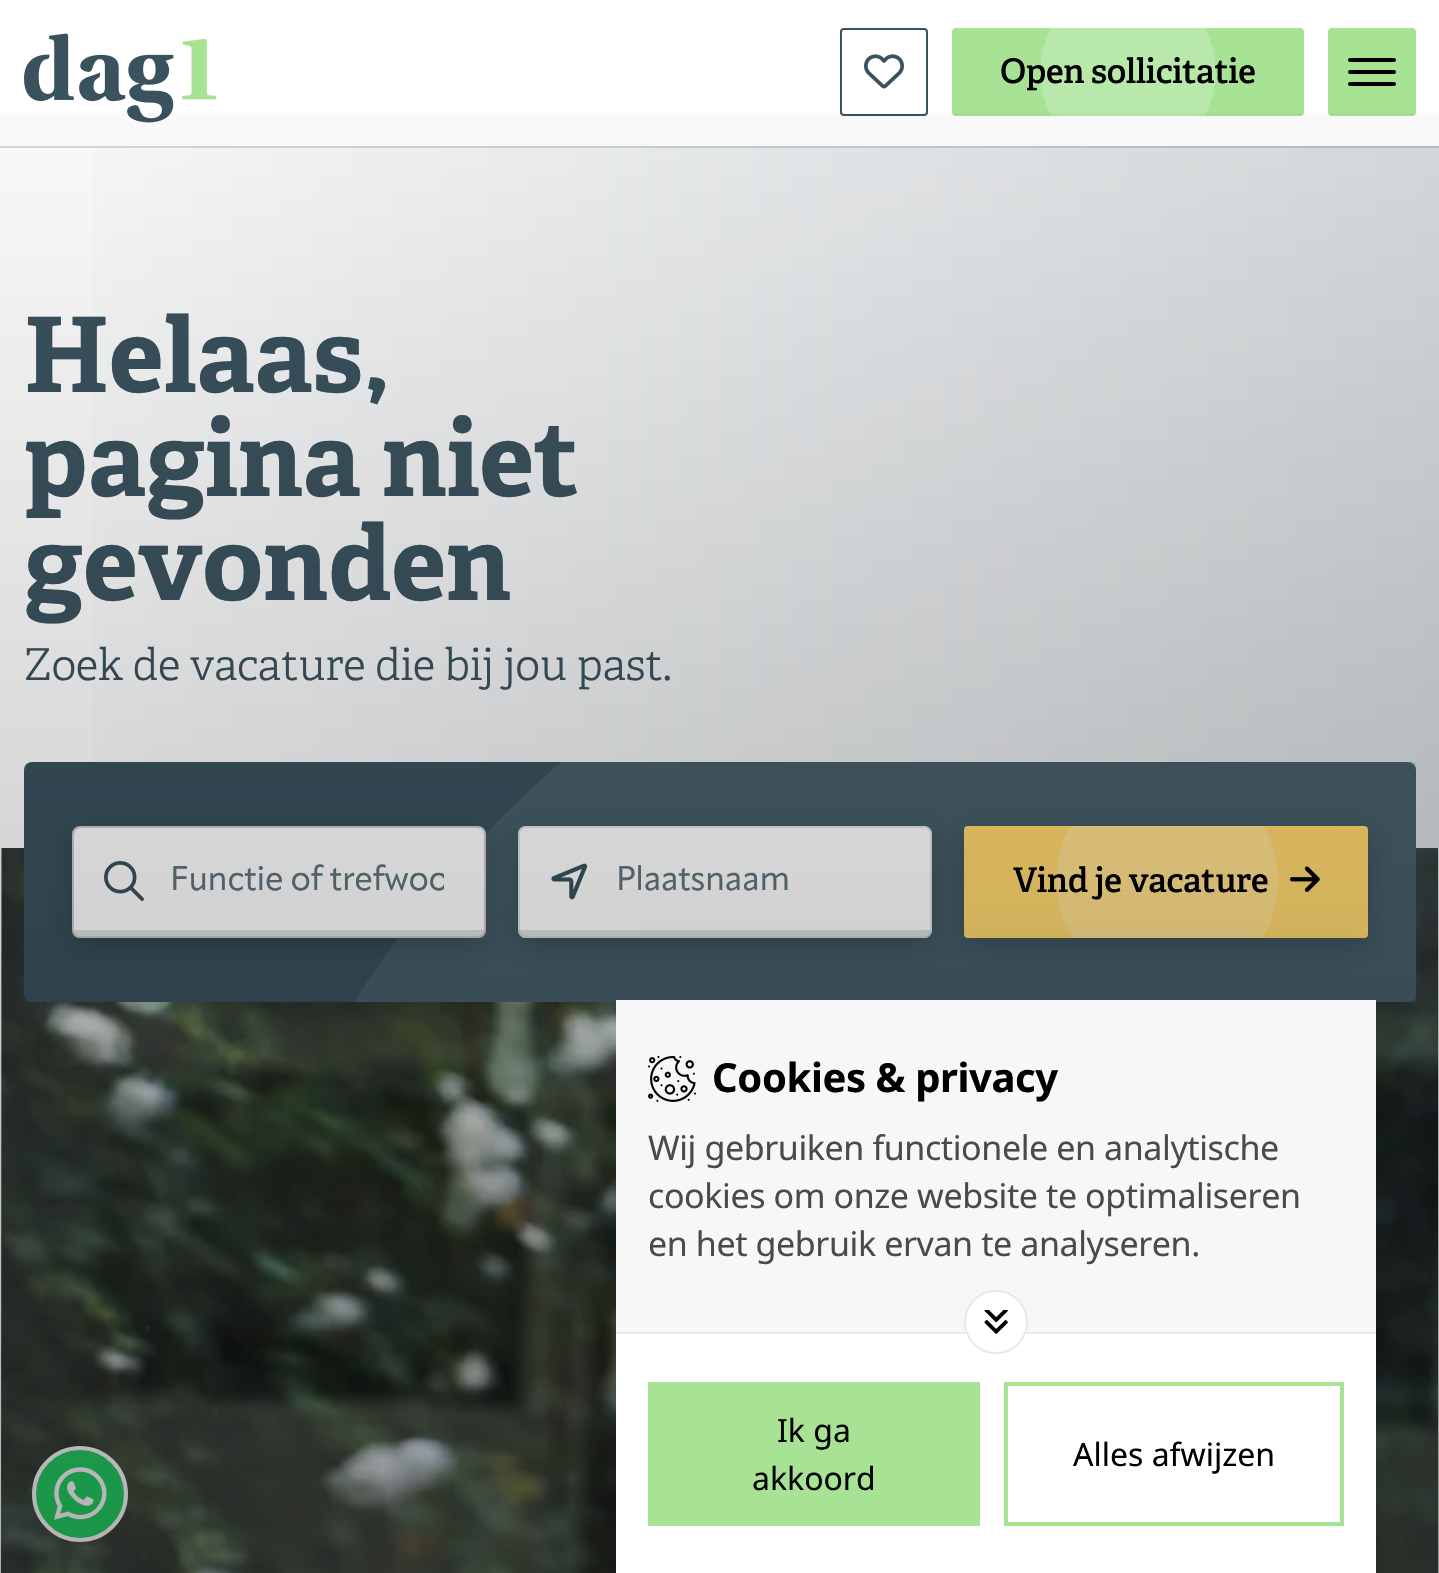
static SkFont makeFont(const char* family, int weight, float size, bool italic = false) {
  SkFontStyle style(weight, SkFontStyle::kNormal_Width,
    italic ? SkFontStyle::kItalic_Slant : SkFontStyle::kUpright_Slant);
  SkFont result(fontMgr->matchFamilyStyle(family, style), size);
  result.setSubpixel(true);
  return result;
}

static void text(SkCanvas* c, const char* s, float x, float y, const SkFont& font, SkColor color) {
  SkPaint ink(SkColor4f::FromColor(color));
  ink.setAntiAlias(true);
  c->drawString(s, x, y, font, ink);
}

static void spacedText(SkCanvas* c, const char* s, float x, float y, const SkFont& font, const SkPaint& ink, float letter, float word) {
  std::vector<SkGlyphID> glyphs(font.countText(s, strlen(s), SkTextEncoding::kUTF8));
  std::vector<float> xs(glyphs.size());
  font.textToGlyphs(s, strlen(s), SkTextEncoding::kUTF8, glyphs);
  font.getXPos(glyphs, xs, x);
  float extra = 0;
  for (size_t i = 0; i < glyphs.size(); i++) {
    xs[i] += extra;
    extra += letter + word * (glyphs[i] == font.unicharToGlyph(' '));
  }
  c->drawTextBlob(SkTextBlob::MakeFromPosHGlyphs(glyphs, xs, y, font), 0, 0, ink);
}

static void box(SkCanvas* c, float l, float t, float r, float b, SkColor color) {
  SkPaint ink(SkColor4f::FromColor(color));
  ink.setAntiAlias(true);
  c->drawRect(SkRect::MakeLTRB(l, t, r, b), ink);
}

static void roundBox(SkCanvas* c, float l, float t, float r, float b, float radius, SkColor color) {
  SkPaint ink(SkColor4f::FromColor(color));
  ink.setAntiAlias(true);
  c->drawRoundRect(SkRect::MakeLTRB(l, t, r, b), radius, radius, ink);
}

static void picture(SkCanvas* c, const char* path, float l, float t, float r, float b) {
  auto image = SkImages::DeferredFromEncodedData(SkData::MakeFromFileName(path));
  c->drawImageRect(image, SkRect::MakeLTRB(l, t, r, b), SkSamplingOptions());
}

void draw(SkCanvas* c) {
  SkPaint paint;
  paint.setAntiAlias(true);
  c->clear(0xffffffff);
  picture(c, "img_01.png", 24, 33, 216, 123);
  paint.setStyle(SkPaint::kStroke_Style);
  paint.setStrokeWidth(2);
  paint.setColor(0xff3a525e);
  c->drawRoundRect(SkRect::MakeLTRB(841, 29, 927, 115), 3, 3, paint);
  picture(c, "img_02.png", 864, 54, 904, 89);
  roundBox(c, 952, 28, 1304, 116, 4, 0xffa8e395);
  paint.setStyle(SkPaint::kFill_Style);
  {
    const SkColor colors[] = {0xffd8dde0, 0xffffffff};
    const float stops[] = {0, 1};
    const SkPoint ends[] = {{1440, 1279}, {0, 1279}};
    paint.setShader(SkGradientShader::MakeLinear(ends, colors, stops, 2, SkTileMode::kClamp));
    paint.setAlpha(255);
  }
  c->drawRect(SkRect::MakeLTRB(92, 148, 1439, 1573), paint);
  {
    const SkColor colors[] = {0xffb8c1c6, 0xffd8dcdf};
    const float stops[] = {0, 1};
    const SkPoint ends[] = {{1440, 1279}, {0, 1279}};
    paint.setShader(SkGradientShader::MakeLinear(ends, colors, stops, 2, SkTileMode::kClamp));
    paint.setAlpha(255);
  }
  c->drawRect(SkRect::MakeLTRB(0, 146, 1439, 148), paint);
  c->save();
  c->clipPath(SkPathBuilder().moveTo(956, 28).lineTo(1300, 28).cubicTo(1302, 28, 1304, 30, 1304, 32).lineTo(1304, 112).cubicTo(1304, 114, 1302, 116, 1300, 116).lineTo(956, 116).cubicTo(954, 116, 952, 114, 952, 112).lineTo(952, 32).cubicTo(952, 30, 954, 28, 956, 28).close().detach(), true);
  paint.setShader(nullptr);
  paint.setColor(0xffb9e9aa);
  c->drawCircle(1128, 72, 88, paint);
  c->restore();
  SkFont face1 = makeFont("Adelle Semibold", 600, 34);
  paint.setColor(0xff000000);
  spacedText(c, "Open sollicitatie", 1000, 83, face1, paint, -0.4f, 0);
  roundBox(c, 1328, 28, 1416, 116, 4, 0xffa8e395);
  roundBox(c, 1348, 58, 1396, 62, 2, 0xff000000);
  roundBox(c, 1348, 70, 1396, 74, 2, 0xff000000);
  roundBox(c, 1348, 82, 1396, 86, 2, 0xff000000);
  SkFont face2 = makeFont("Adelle", 700, 104);
  text(c, "Helaas,", 24, 392, face2, 0xff3a525e);
  text(c, "pagina niet", 24, 496, face2, 0xff3a525e);
  text(c, "gevonden", 24, 600, face2, 0xff3a525e);
  SkFont face3 = makeFont("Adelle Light", 300, 44);
  paint.setColor(0xff3a525e);
  spacedText(c, "Zoek de vacature die bij jou past.", 24, 680, face3, paint, -0.4f, 0);
  picture(c, "img_06.png", 1, 848, 1438, 1573);
  roundBox(c, 24, 762, 1416, 1002, 8, 0xff3a525e);
  c->save();
  c->clipRect(SkRect::MakeLTRB(24, 762, 1416, 1002));
  roundBox(c, 184, 498, 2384, 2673, 1100, 0x3378909c);
  c->restore();
  c->save();
  c->clipPath(SkPathBuilder(SkPathFillType::kEvenOdd).moveTo(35, 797).lineTo(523, 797).lineTo(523, 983).lineTo(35, 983).close().moveTo(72, 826).lineTo(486, 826).lineTo(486, 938).lineTo(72, 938).close().detach(), true);
  paint.setColor(0x33000000);
  paint.setMaskFilter(SkMaskFilter::MakeBlur(kNormal_SkBlurStyle, 12));
  c->drawRect(SkRect::MakeLTRB(72, 834, 486, 946), paint);
  paint.setMaskFilter(nullptr);
  c->restore();
  paint.setColor(0xffffffff);
  c->drawRoundRect(SkRect::MakeLTRB(73, 827, 485, 937), 7, 7, paint);
  paint.setStyle(SkPaint::kStroke_Style);
  paint.setColor(0xffcccccc);
  c->drawRoundRect(SkRect::MakeLTRB(73, 827, 485, 937), 7, 7, paint);
  picture(c, "img_03.png", 104, 861, 144, 901);
  c->save();
  c->clipRect(SkRect::MakeLTRB(170, 864, 444, 898));
  SkFont face4 = makeFont("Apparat", 400, 34);
  paint.setStyle(SkPaint::kFill_Style);
  paint.setColor(0xff61757e);
  spacedText(c, "Functie of trefwoo", 170, 890, face4, paint, -0.4f, 0);
  c->restore();
  paint.setColor(0x80c2c6c8);
  c->drawPath(SkPathBuilder().moveTo(72, 930).lineTo(486, 930).cubicTo(486, 934.5f, 482.5f, 938, 478, 938).lineTo(80, 938).cubicTo(75.5f, 938, 72, 934.5f, 72, 930).close().detach(), paint);
  c->save();
  c->clipPath(SkPathBuilder(SkPathFillType::kEvenOdd).moveTo(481, 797).lineTo(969, 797).lineTo(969, 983).lineTo(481, 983).close().moveTo(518, 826).lineTo(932, 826).lineTo(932, 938).lineTo(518, 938).close().detach(), true);
  paint.setColor(0x33000000);
  paint.setMaskFilter(SkMaskFilter::MakeBlur(kNormal_SkBlurStyle, 12));
  c->drawRect(SkRect::MakeLTRB(518, 834, 932, 946), paint);
  paint.setMaskFilter(nullptr);
  c->restore();
  roundBox(c, 518, 826, 932, 938, 8, 0xffffffff);
  paint.setStyle(SkPaint::kStroke_Style);
  paint.setColor(0x80c2c6c8);
  c->drawRoundRect(SkRect::MakeLTRB(519, 827, 931, 937), 7, 7, paint);
  picture(c, "img_04.png", 551, 863, 588, 900);
  paint.setStyle(SkPaint::kFill_Style);
  paint.setColor(0xff61757e);
  spacedText(c, "Plaatsnaam", 616, 890, face4, paint, -0.4f, 0);
  paint.setColor(0x80c2c6c8);
  c->drawPath(SkPathBuilder().moveTo(518, 930).lineTo(932, 930).cubicTo(932, 934.5f, 928.5f, 938, 924, 938).lineTo(526, 938).cubicTo(521.5f, 938, 518, 934.5f, 518, 930).close().detach(), paint);
  paint.setColor(0x33000000);
  paint.setMaskFilter(SkMaskFilter::MakeBlur(kNormal_SkBlurStyle, 12));
  c->drawRoundRect(SkRect::MakeLTRB(964, 834, 1368, 946), 4, 4, paint);
  paint.setMaskFilter(nullptr);
  roundBox(c, 964, 826, 1368, 938, 4, 0xffffd86f);
  c->save();
  c->clipPath(SkPathBuilder().moveTo(968, 826).lineTo(1364, 826).cubicTo(1366, 826, 1368, 828, 1368, 830).lineTo(1368, 934).cubicTo(1368, 936, 1366, 938, 1364, 938).lineTo(968, 938).cubicTo(966, 938, 964, 936, 964, 934).lineTo(964, 830).cubicTo(964, 828, 966, 826, 968, 826).close().detach(), true);
  paint.setColor(0xffffe08c);
  c->drawCircle(1167, 881, 111, paint);
  c->restore();
  paint.setColor(0xff000000);
  spacedText(c, "Vind je vacature", 1013, 892, face1, paint, -0.4f, 0);
  picture(c, "img_05.png", 1290, 866, 1320, 892);
  paint.setColor(0xff25d366);
  c->drawCircle(80, 1494, 46, paint);
  paint.setStyle(SkPaint::kStroke_Style);
  paint.setStrokeWidth(4);
  paint.setColor(0xffffffff);
  c->drawCircle(80, 1494, 46, paint);
  picture(c, "img_07.png", 54, 1467, 107, 1520);
  paint.setStyle(SkPaint::kFill_Style);
  {
    const SkColor colors[] = {0x4d000000, 0x00000000};
    const float stops[] = {0, 1};
    const SkPoint ends[] = {{720, 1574}, {720, 0}};
    paint.setShader(SkGradientShader::MakeLinear(ends, colors, stops, 2, SkTileMode::kClamp));
    paint.setAlpha(255);
  }
  c->drawRect(SkRect::MakeLTRB(0, 113, 1439, 1573), paint);
  paint.setShader(nullptr);
  paint.setColor(0x40000000);
  paint.setMaskFilter(SkMaskFilter::MakeBlur(kNormal_SkBlurStyle, 50));
  c->drawRect(SkRect::MakeLTRB(640, 1074, 1352, 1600), paint);
  paint.setMaskFilter(nullptr);
  box(c, 616, 1334, 1376, 1573, 0xffffffff);
  box(c, 616, 1000, 1376, 1332, 0xfff7f7f7);
  picture(c, "img_08.png", 648, 1056, 696, 1102);
  SkFont face5 = makeFont("Noto Sans", 700, 40);
  paint.setColor(0xff000000);
  spacedText(c, "Cookies & privacy", 712, 1092, face5, paint, -0.4f, 0);
  SkFont face6 = makeFont("Noto Sans", 400, 34);
  paint.setColor(0xff4a4a4a);
  spacedText(c, "Wij gebruiken functionele en analytische", 648, 1160, face6, paint, -0.4f, 0);
  spacedText(c, "cookies om onze website te optimaliseren", 648, 1208, face6, paint, -0.4f, 0);
  spacedText(c, "en het gebruik ervan te analyseren.", 648, 1256, face6, paint, -0.4f, 0);
  box(c, 616, 1332, 1376, 1334, 0xffe9e9e9);
  paint.setColor(0xffffffff);
  c->drawCircle(996, 1322, 31, paint);
  paint.setStyle(SkPaint::kStroke_Style);
  paint.setStrokeWidth(2);
  paint.setColor(0xffe9e9e9);
  c->drawCircle(996, 1322, 31, paint);
  picture(c, "img_09.png", 984, 1310, 1008, 1334);
  box(c, 648, 1382, 980, 1526, 0xffa8e395);
  SkFont face7 = makeFont("Noto Sans", 400, 32);
  text(c, "Ik ga", 777, 1442, face7, 0xff000000);
  text(c, "akkoord", 752, 1490, face7, 0xff000000);
  paint.setStrokeWidth(4);
  paint.setColor(0xffa8e395);
  c->drawRect(SkRect::MakeLTRB(1006, 1384, 1342, 1524), paint);
  text(c, "Alles afwijzen", 1073, 1466, face7, 0xff000000);
}
